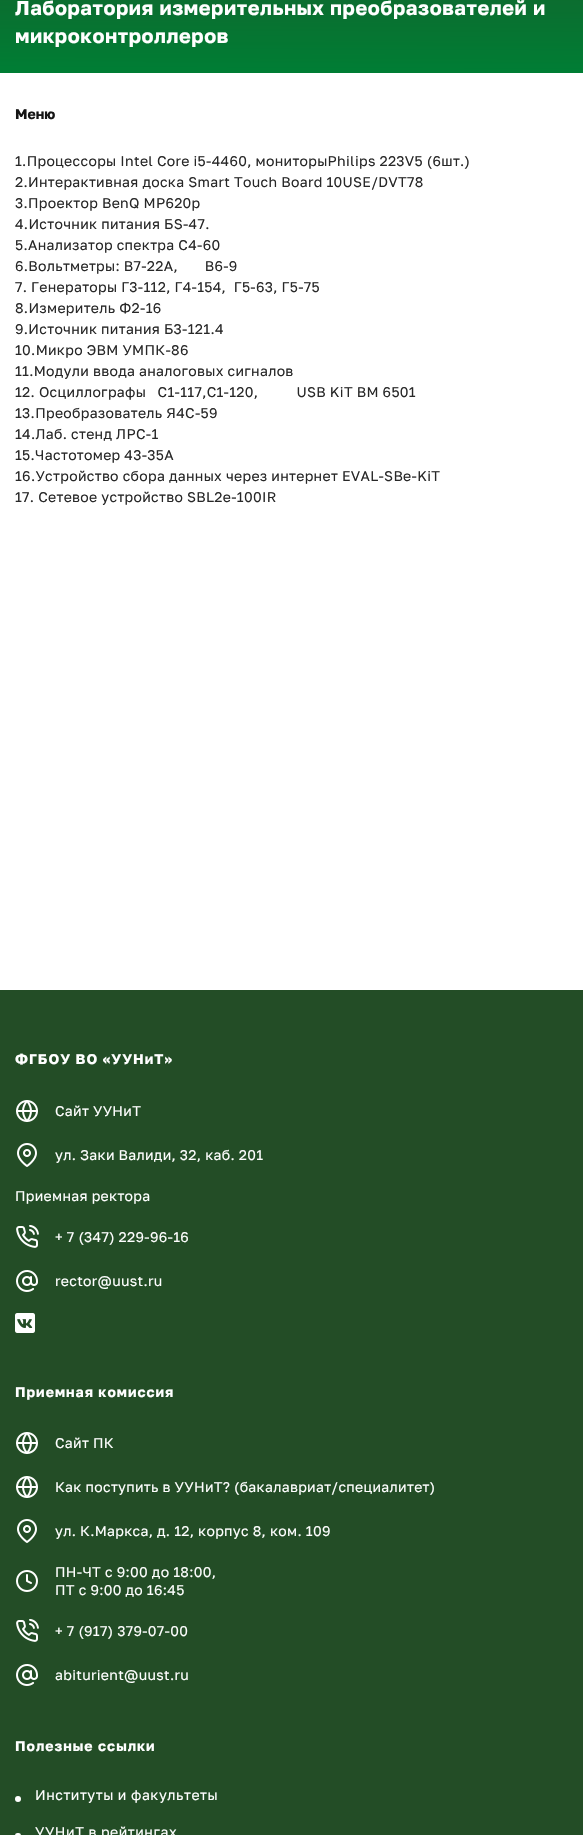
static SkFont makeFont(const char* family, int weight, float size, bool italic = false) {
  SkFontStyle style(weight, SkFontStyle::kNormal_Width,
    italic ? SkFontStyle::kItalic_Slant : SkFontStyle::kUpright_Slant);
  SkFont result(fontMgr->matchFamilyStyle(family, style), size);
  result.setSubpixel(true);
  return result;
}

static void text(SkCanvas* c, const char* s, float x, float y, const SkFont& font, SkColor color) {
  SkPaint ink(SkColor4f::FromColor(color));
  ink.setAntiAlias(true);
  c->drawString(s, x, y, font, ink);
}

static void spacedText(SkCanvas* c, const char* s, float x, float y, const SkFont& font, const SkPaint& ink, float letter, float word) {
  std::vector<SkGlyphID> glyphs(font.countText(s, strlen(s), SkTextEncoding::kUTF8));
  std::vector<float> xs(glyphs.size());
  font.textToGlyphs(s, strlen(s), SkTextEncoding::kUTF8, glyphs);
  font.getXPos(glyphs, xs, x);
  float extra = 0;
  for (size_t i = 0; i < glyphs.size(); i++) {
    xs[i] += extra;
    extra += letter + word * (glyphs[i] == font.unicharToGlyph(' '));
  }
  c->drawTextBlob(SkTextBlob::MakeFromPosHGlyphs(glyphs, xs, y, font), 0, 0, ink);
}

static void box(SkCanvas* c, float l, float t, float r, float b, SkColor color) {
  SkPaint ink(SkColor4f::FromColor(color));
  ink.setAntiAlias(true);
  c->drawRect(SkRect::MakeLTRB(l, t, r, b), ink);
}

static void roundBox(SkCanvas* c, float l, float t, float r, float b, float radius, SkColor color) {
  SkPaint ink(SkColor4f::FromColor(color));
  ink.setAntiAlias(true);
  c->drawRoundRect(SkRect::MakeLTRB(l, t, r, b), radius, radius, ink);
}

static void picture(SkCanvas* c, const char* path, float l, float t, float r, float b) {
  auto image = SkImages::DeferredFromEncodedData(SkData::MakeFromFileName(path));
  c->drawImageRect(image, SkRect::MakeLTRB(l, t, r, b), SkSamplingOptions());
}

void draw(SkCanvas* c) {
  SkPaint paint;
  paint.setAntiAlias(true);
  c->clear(0xffffffff);
  {
    const SkColor colors[] = {0xff234d26, 0xff007d34};
    const float stops[] = {0.02f, 1};
    SkMatrix m = SkMatrix::Translate(1153, -150).preScale(6575, 222);
    paint.setShader(SkGradientShader::MakeRadial({0, 0}, 1, colors, stops, 2, SkTileMode::kClamp, 0, &m));
    paint.setAlpha(255);
  }
  c->drawRect(SkRect::MakeLTRB(0, 0, 583, 73), paint);
  SkFont face1 = makeFont("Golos", 700, 20);
  paint.setShader(nullptr);
  paint.setColor(0xffffffff);
  spacedText(c, "Лаборатория измерительных преобразователей и", 15, 15, face1, paint, 0.55f, 0);
  spacedText(c, "микроконтроллеров", 15, 43, face1, paint, 0.55f, 0);
  SkFont face2 = makeFont("Golos", 700, 14);
  text(c, "Меню", 15, 119, face2, 0xff151515);
  SkFont face3 = makeFont("Golos", 400, 14);
  paint.setColor(0xff282828);
  spacedText(c, "1.Процессоры Intel Core i5-4460, мониторыPhilips 223V5 (6шт.)", 15, 166, face3, paint, 0.32f, 0);
  spacedText(c, "2.Интерактивная доска Smart Touch Board 10USE/DVT78", 15, 187, face3, paint, 0.32f, 0);
  spacedText(c, "3.Проектор BenQ MP620p", 15, 208, face3, paint, 0.32f, 0);
  spacedText(c, "4.Источник питания БS-47.", 15, 229, face3, paint, 0.32f, 0);
  spacedText(c, "5.Анализатор спектра С4-60", 15, 250, face3, paint, 0.32f, 0);
  spacedText(c, "6.Вольтметры: В7-22А,       В6-9", 15, 271, face3, paint, 0.32f, 0);
  spacedText(c, "7. Генераторы Г3-112, Г4-154,  Г5-63, Г5-75", 15, 292, face3, paint, 0.32f, 0);
  spacedText(c, "8.Измеритель Ф2-16", 15, 313, face3, paint, 0.32f, 0);
  spacedText(c, "9.Источник питания Б3-121.4", 15, 334, face3, paint, 0.32f, 0);
  spacedText(c, "10.Микро ЭВМ УМПК-86", 15, 355, face3, paint, 0.32f, 0);
  spacedText(c, "11.Модули ввода аналоговых сигналов", 15, 376, face3, paint, 0.32f, 0);
  spacedText(c, "12. Осциллографы   С1-117,С1-120,          USB KiT BM 6501", 15, 397, face3, paint, 0.32f, 0);
  spacedText(c, "13.Преобразователь Я4С-59", 15, 418, face3, paint, 0.32f, 0);
  spacedText(c, "14.Лаб. стенд ЛРС-1", 15, 439, face3, paint, 0.32f, 0);
  spacedText(c, "15.Частотомер 43-35А", 15, 460, face3, paint, 0.32f, 0);
  spacedText(c, "16.Устройство сбора данных через интернет EVAL-SBe-KiT", 15, 481, face3, paint, 0.32f, 0);
  spacedText(c, "17. Сетевое устройство SBL2e-100IR", 15, 502, face3, paint, 0.32f, 0);
  box(c, 0, 990, 583, 1835, 0xff234d26);
  paint.setColor(0xffffffff);
  spacedText(c, "ФГБОУ ВО «УУНиТ»", 15, 1064, face2, paint, 1, 0);
  picture(c, "img_01.png", 16, 1100, 38, 1122);
  spacedText(c, "Сайт УУНиТ", 55, 1116, face3, paint, 0.32f, 0);
  picture(c, "img_02.png", 17, 1143, 37, 1167);
  spacedText(c, "ул. Заки Валиди, 32, каб. 201", 55, 1160, face3, paint, 0.32f, 0);
  spacedText(c, "Приемная ректора", 15, 1201, face3, paint, 0.32f, 0);
  picture(c, "img_03.png", 16, 1225, 39, 1248);
  spacedText(c, "+ 7 (347) 229-96-16", 55, 1242, face3, paint, 0.32f, 0);
  picture(c, "img_04.png", 16, 1270, 38, 1292);
  spacedText(c, "rector@uust.ru", 55, 1286, face3, paint, 0.32f, 0);
  picture(c, "img_05.png", 15, 1313, 35, 1333);
  spacedText(c, "Приемная комиссия", 15, 1397, face2, paint, 1, 0);
  picture(c, "img_01.png", 16, 1432, 38, 1454);
  spacedText(c, "Сайт ПК", 55, 1448, face3, paint, 0.32f, 0);
  picture(c, "img_01.png", 16, 1476, 38, 1498);
  spacedText(c, "Как поступить в УУНиТ? (бакалавриат/специалитет)", 55, 1492, face3, paint, 0.32f, 0);
  picture(c, "img_02.png", 17, 1519, 37, 1543);
  spacedText(c, "ул. К.Маркса, д. 12, корпус 8, ком. 109", 55, 1536, face3, paint, 0.32f, 0);
  picture(c, "img_06.png", 16, 1570, 38, 1592);
  spacedText(c, "ПН-ЧТ с 9:00 до 18:00,", 55, 1577, face3, paint, 0.32f, 0);
  spacedText(c, "ПТ с 9:00 до 16:45", 55, 1595, face3, paint, 0.32f, 0);
  picture(c, "img_03.png", 16, 1619, 39, 1642);
  spacedText(c, "+ 7 (917) 379-07-00", 55, 1636, face3, paint, 0.32f, 0);
  picture(c, "img_04.png", 16, 1664, 38, 1686);
  spacedText(c, "abiturient@uust.ru", 55, 1680, face3, paint, 0.32f, 0);
  spacedText(c, "Полезные ссылки", 15, 1751, face2, paint, 1, 0);
  c->drawCircle(18, 1799, 3, paint);
  spacedText(c, "Институты и факультеты", 35, 1800, face3, paint, 0.55f, 0);
  spacedText(c, "УУНиТ в рейтингах", 35, 1837, face3, paint, 0.55f, 0);
  roundBox(c, 15, 1833, 21, 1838, 3, 0xffffffff);
}
